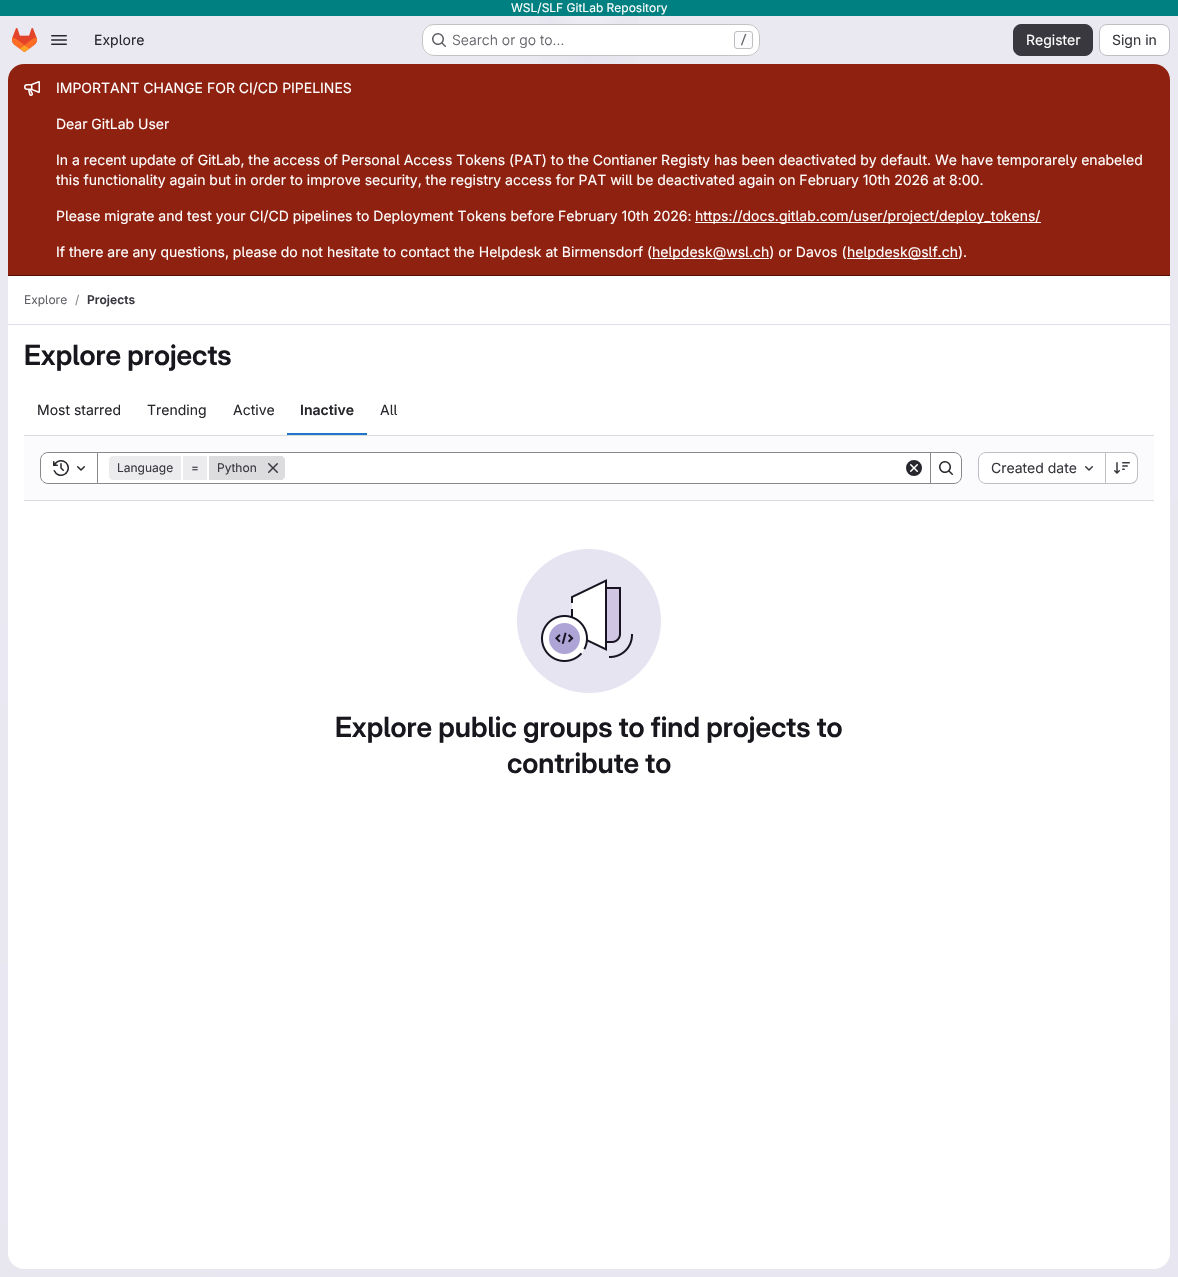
static SkFont makeFont(const char* family, int weight, float size, bool italic = false) {
  SkFontStyle style(weight, SkFontStyle::kNormal_Width,
    italic ? SkFontStyle::kItalic_Slant : SkFontStyle::kUpright_Slant);
  SkFont result(fontMgr->matchFamilyStyle(family, style), size);
  result.setSubpixel(true);
  return result;
}

static void text(SkCanvas* c, const char* s, float x, float y, const SkFont& font, SkColor color) {
  SkPaint ink(SkColor4f::FromColor(color));
  ink.setAntiAlias(true);
  c->drawString(s, x, y, font, ink);
}

static void box(SkCanvas* c, float l, float t, float r, float b, SkColor color) {
  SkPaint ink(SkColor4f::FromColor(color));
  ink.setAntiAlias(true);
  c->drawRect(SkRect::MakeLTRB(l, t, r, b), ink);
}

static void roundBox(SkCanvas* c, float l, float t, float r, float b, float radius, SkColor color) {
  SkPaint ink(SkColor4f::FromColor(color));
  ink.setAntiAlias(true);
  c->drawRoundRect(SkRect::MakeLTRB(l, t, r, b), radius, radius, ink);
}

static void picture(SkCanvas* c, const char* path, float l, float t, float r, float b) {
  auto image = SkImages::DeferredFromEncodedData(SkData::MakeFromFileName(path));
  c->drawImageRect(image, SkRect::MakeLTRB(l, t, r, b), SkSamplingOptions());
}

void draw(SkCanvas* c) {
  SkPaint paint;
  paint.setAntiAlias(true);
  c->clear(0xffffffff);
  {
    const SkColor colors[] = {0xffe8e6f0, 0xffeae9f2};
    const float stops[] = {0, 0.7f};
    const SkPoint ends[] = {{716, 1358}, {462, -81}};
    paint.setShader(SkGradientShader::MakeLinear(ends, colors, stops, 2, SkTileMode::kClamp));
    paint.setAlpha(255);
  }
  c->drawRect(SkRect::MakeLTRB(0, 16, 1178, 1277), paint);
  {
    const SkColor colors[] = {0xffe4e2ed, 0x00e4e2ed};
    const float stops[] = {0, 0.12f};
    SkMatrix m = SkMatrix::Translate(589, 0).preScale(589, 1277);
    paint.setShader(SkGradientShader::MakeRadial({0, 0}, 1, colors, stops, 2, SkTileMode::kClamp, 0, &m));
    paint.setAlpha(255);
  }
  c->drawRect(SkRect::MakeLTRB(539, 16, 639, 64), paint);
  {
    const SkColor colors[] = {0xffe4e2ec, 0x00e4e2ec};
    const float stops[] = {0, 0.08f};
    SkMatrix m = SkMatrix::Translate(589, 0).preScale(589, 1277);
    paint.setShader(SkGradientShader::MakeRadial({0, 0}, 1, colors, stops, 2, SkTileMode::kClamp, 0, &m));
    paint.setAlpha(255);
  }
  c->drawRect(SkRect::MakeLTRB(584, 18, 594, 19), paint);
  {
    const SkColor colors[] = {0x99ffffff, 0x00ffffff};
    const float stops[] = {0, 0.03f};
    paint.setShader(SkGradientShader::MakeRadial({589, 0}, 1406, colors, stops, 2, SkTileMode::kClamp));
    paint.setAlpha(255);
  }
  c->drawRect(SkRect::MakeLTRB(550, 16, 628, 24), paint);
  box(c, 0, 0, 1178, 16, 0xff008080);
  SkFont face1 = makeFont("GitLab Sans", 400, 12);
  text(c, "WSL/SLF GitLab Repository", 511, 12, face1, 0xffffffff);
  picture(c, "img_01.png", 12, 28, 37, 52);
  picture(c, "img_02.png", 51, 35, 67, 45);
  SkFont face2 = makeFont("GitLab Sans", 400, 14);
  text(c, "Explore", 94, 45, face2, 0xff28272d);
  roundBox(c, 422, 24, 760, 56, 12, 0xffffffff);
  paint.setStyle(SkPaint::kStroke_Style);
  paint.setStrokeWidth(1);
  paint.setShader(nullptr);
  paint.setColor(0x3d050506);
  c->drawRoundRect(SkRect::MakeLTRB(422.5f, 24.5f, 759.5f, 55.5f), 11.5f, 11.5f, paint);
  picture(c, "img_03.png", 432, 33, 446, 47);
  SkFont face3 = makeFont("GitLab Sans", 300, 14);
  text(c, "Search or go to…", 452, 45, face3, 0xff626168);
  paint.setStyle(SkPaint::kFill_Style);
  paint.setColor(0xfffbfafd);
  c->drawRoundRect(SkRect::MakeLTRB(734.5f, 31.5f, 752.5f, 48.5f), 2.5f, 2.5f, paint);
  paint.setStyle(SkPaint::kStroke_Style);
  paint.setColor(0xffbfbfc3);
  c->drawRoundRect(SkRect::MakeLTRB(734.5f, 31.5f, 752.5f, 48.5f), 2.5f, 2.5f, paint);
  SkFont face4 = makeFont("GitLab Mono", 500, 12);
  text(c, "/", 740, 44, face4, 0xff626168);
  paint.setStyle(SkPaint::kFill_Style);
  paint.setColor(0xff3a383f);
  c->drawRoundRect(SkRect::MakeLTRB(1013.5f, 24.5f, 1092.5f, 55.5f), 7.5f, 7.5f, paint);
  paint.setStyle(SkPaint::kStroke_Style);
  c->drawRoundRect(SkRect::MakeLTRB(1013.5f, 24.5f, 1092.5f, 55.5f), 7.5f, 7.5f, paint);
  text(c, "Register", 1026, 45, face2, 0xffffffff);
  paint.setStyle(SkPaint::kFill_Style);
  paint.setColor(0xffffffff);
  c->drawRoundRect(SkRect::MakeLTRB(1099.5f, 24.5f, 1169.5f, 55.5f), 7.5f, 7.5f, paint);
  paint.setStyle(SkPaint::kStroke_Style);
  paint.setColor(0xffbfbfc3);
  c->drawRoundRect(SkRect::MakeLTRB(1099.5f, 24.5f, 1169.5f, 55.5f), 7.5f, 7.5f, paint);
  text(c, "Sign in", 1112, 45, face2, 0xff3a383f);
  roundBox(c, 8, 64, 1170, 1269, 16, 0xffffffff);
  paint.setStyle(SkPaint::kFill_Style);
  paint.setColor(0xff8f2110);
  c->drawPath(SkPathBuilder().moveTo(24, 64).lineTo(1154, 64).cubicTo(1163, 64, 1170, 71, 1170, 80).lineTo(1170, 276).lineTo(8, 276).lineTo(8, 80).cubicTo(8, 71, 15, 64, 24, 64).close().detach(), paint);
  box(c, 8, 275, 1170, 276, 0xff580d02);
  picture(c, "img_04.png", 24, 81, 40, 96);
  text(c, "IMPORTANT CHANGE FOR CI/CD PIPELINES", 56, 93, face2, 0xffffffff);
  text(c, "Dear GitLab User", 56, 129, face2, 0xffffffff);
  text(c, "In a recent update of GitLab, the access of Personal Access Tokens (PAT) to the Contianer Registy has been deactivated by default. We have temporarely enabeled", 56, 165, face2, 0xffffffff);
  text(c, "this functionality again but in order to improve security, the registry access for PAT will be deactivated again on February 10th 2026 at 8:00.", 56, 185, face2, 0xffffffff);
  text(c, "Please migrate and test your CI/CD pipelines to Deployment Tokens before February 10th 2026:", 56, 221, face2, 0xffffffff);
  box(c, 695, 222, 1041, 223, 0xffffffff);
  text(c, "https://docs.gitlab.com/user/project/deploy_tokens/", 695, 221, face2, 0xffffffff);
  text(c, "If there are any questions, please do not hesitate to contact the Helpdesk at Birmensdorf (", 56, 257, face2, 0xffffffff);
  box(c, 652, 258, 769, 259, 0xffffffff);
  text(c, "helpdesk@wsl.ch) or Davos (", 652, 257, face2, 0xffffffff);
  box(c, 847, 258, 958, 259, 0xffffffff);
  text(c, "helpdesk@slf.ch).", 847, 257, face2, 0xffffffff);
  box(c, 8, 324, 1170, 325, 0xffe1dfec);
  text(c, "Explore", 24, 304, face1, 0xff626168);
  text(c, "/", 75, 304, face1, 0xff89888d);
  SkFont face5 = makeFont("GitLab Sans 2", 600, 12);
  text(c, "Projects", 87, 304, face5, 0xff3a383f);
  SkFont face6 = makeFont("GitLab Sans", 600, 28);
  text(c, "Explore projects", 24, 365, face6, 0xff18171d);
  text(c, "Most starred", 37, 415, face2, 0xff28272d);
  text(c, "Trending", 147, 415, face2, 0xff28272d);
  text(c, "Active", 233, 415, face2, 0xff28272d);
  SkFont face7 = makeFont("GitLab Sans 2", 600, 14);
  text(c, "Inactive", 300, 415, face7, 0xff28272d);
  box(c, 287, 433, 367, 435, 0xff1f75cb);
  text(c, "All", 380, 415, face2, 0xff28272d);
  box(c, 24, 436, 1154, 500, 0xfffbfafd);
  box(c, 24, 435, 1154, 436, 0xffdcdcde);
  box(c, 24, 500, 1154, 501, 0xffdcdcde);
  paint.setColor(0xffffffff);
  c->drawRect(SkRect::MakeLTRB(97.5f, 452.5f, 930.5f, 483.5f), paint);
  paint.setStyle(SkPaint::kStroke_Style);
  paint.setColor(0xff89888d);
  c->drawRect(SkRect::MakeLTRB(97.5f, 452.5f, 930.5f, 483.5f), paint);
  paint.setStyle(SkPaint::kFill_Style);
  paint.setColor(0xffffffff);
  c->drawPath(SkPathBuilder().moveTo(48, 452.5f).lineTo(97.5f, 452.5f).lineTo(97.5f, 483.5f).lineTo(48, 483.5f).cubicTo(44, 483.5f, 40.5f, 480, 40.5f, 476).lineTo(40.5f, 460).cubicTo(40.5f, 456, 44, 452.5f, 48, 452.5f).close().detach(), paint);
  paint.setStyle(SkPaint::kStroke_Style);
  paint.setColor(0xff89888d);
  c->drawPath(SkPathBuilder().moveTo(48, 452.5f).lineTo(97.5f, 452.5f).lineTo(97.5f, 483.5f).lineTo(48, 483.5f).cubicTo(44, 483.5f, 40.5f, 480, 40.5f, 476).lineTo(40.5f, 460).cubicTo(40.5f, 456, 44, 452.5f, 48, 452.5f).close().detach(), paint);
  picture(c, "img_05.png", 53, 460, 69, 476);
  picture(c, "img_06.png", 77, 466, 85, 471);
  paint.setStyle(SkPaint::kFill_Style);
  paint.setColor(0xffececef);
  c->drawPath(SkPathBuilder().moveTo(113, 456).lineTo(181, 456).lineTo(181, 480).lineTo(113, 480).cubicTo(111, 480, 109, 478, 109, 476).lineTo(109, 460).cubicTo(109, 458, 111, 456, 113, 456).close().detach(), paint);
  text(c, "Language", 117, 472, face1, 0xff3a383f);
  box(c, 183, 456, 207, 480, 0xffececef);
  text(c, "=", 191, 472, face1, 0xff3a383f);
  paint.setColor(0xffdcdcde);
  c->drawPath(SkPathBuilder().moveTo(209, 456).lineTo(281, 456).cubicTo(283, 456, 285, 458, 285, 460).lineTo(285, 476).cubicTo(285, 478, 283, 480, 281, 480).lineTo(209, 480).close().detach(), paint);
  text(c, "Python", 217, 472, face1, 0xff3a383f);
  picture(c, "img_07.png", 268, 463, 278, 473);
  picture(c, "img_08.png", 906, 460, 922, 476);
  paint.setColor(0xffffffff);
  c->drawPath(SkPathBuilder().moveTo(930.5f, 452.5f).lineTo(954, 452.5f).cubicTo(958, 452.5f, 961.5f, 456, 961.5f, 460).lineTo(961.5f, 476).cubicTo(961.5f, 480, 958, 483.5f, 954, 483.5f).lineTo(930.5f, 483.5f).close().detach(), paint);
  paint.setStyle(SkPaint::kStroke_Style);
  paint.setColor(0xff89888d);
  c->drawPath(SkPathBuilder().moveTo(930.5f, 452.5f).lineTo(954, 452.5f).cubicTo(958, 452.5f, 961.5f, 456, 961.5f, 460).lineTo(961.5f, 476).cubicTo(961.5f, 480, 958, 483.5f, 954, 483.5f).lineTo(930.5f, 483.5f).close().detach(), paint);
  picture(c, "img_09.png", 939, 461, 953, 475);
  paint.setStyle(SkPaint::kFill_Style);
  paint.setColor(0xffffffff);
  c->drawPath(SkPathBuilder().moveTo(986, 453).lineTo(1105, 453).lineTo(1105, 483).lineTo(986, 483).cubicTo(982, 483, 979, 480, 979, 476).lineTo(979, 460).cubicTo(979, 456, 982, 453, 986, 453).close().detach(), paint);
  paint.setColor(0xffbfbfc3);
  c->drawPath(SkPathBuilder(SkPathFillType::kEvenOdd).moveTo(986, 452).lineTo(1105, 452).lineTo(1105, 484).lineTo(986, 484).cubicTo(982, 484, 978, 480, 978, 476).lineTo(978, 460).cubicTo(978, 456, 982, 452, 986, 452).close().moveTo(986, 453).lineTo(1105, 453).lineTo(1105, 483).lineTo(986, 483).cubicTo(982, 483, 979, 480, 979, 476).lineTo(979, 460).cubicTo(979, 456, 982, 453, 986, 453).close().detach(), paint);
  text(c, "Created date", 991, 473, face2, 0xff3a383f);
  picture(c, "img_10.png", 1085, 466, 1093, 471);
  paint.setColor(0xffffffff);
  c->drawPath(SkPathBuilder().moveTo(1106, 453).lineTo(1130, 453).cubicTo(1134, 453, 1137, 456, 1137, 460).lineTo(1137, 476).cubicTo(1137, 480, 1134, 483, 1130, 483).lineTo(1106, 483).close().detach(), paint);
  paint.setColor(0xffbfbfc3);
  c->drawPath(SkPathBuilder(SkPathFillType::kEvenOdd).moveTo(1106, 452).lineTo(1130, 452).cubicTo(1134.5f, 452, 1138, 455.5f, 1138, 460).lineTo(1138, 476).cubicTo(1138, 480.5f, 1134.5f, 484, 1130, 484).lineTo(1106, 484).close().moveTo(1106, 453).lineTo(1130, 453).cubicTo(1134, 453, 1137, 456, 1137, 460).lineTo(1137, 476).cubicTo(1137, 480, 1134, 483, 1130, 483).lineTo(1106, 483).close().detach(), paint);
  box(c, 1105, 452, 1106, 484, 0xffbfbfc3);
  picture(c, "img_11.png", 1114, 462, 1130, 474);
  picture(c, "img_12.png", 517, 549, 661, 693);
  text(c, "Explore public groups to find projects to", 335, 737, face6, 0xff18171d);
  text(c, "contribute to", 507, 773, face6, 0xff18171d);
}
